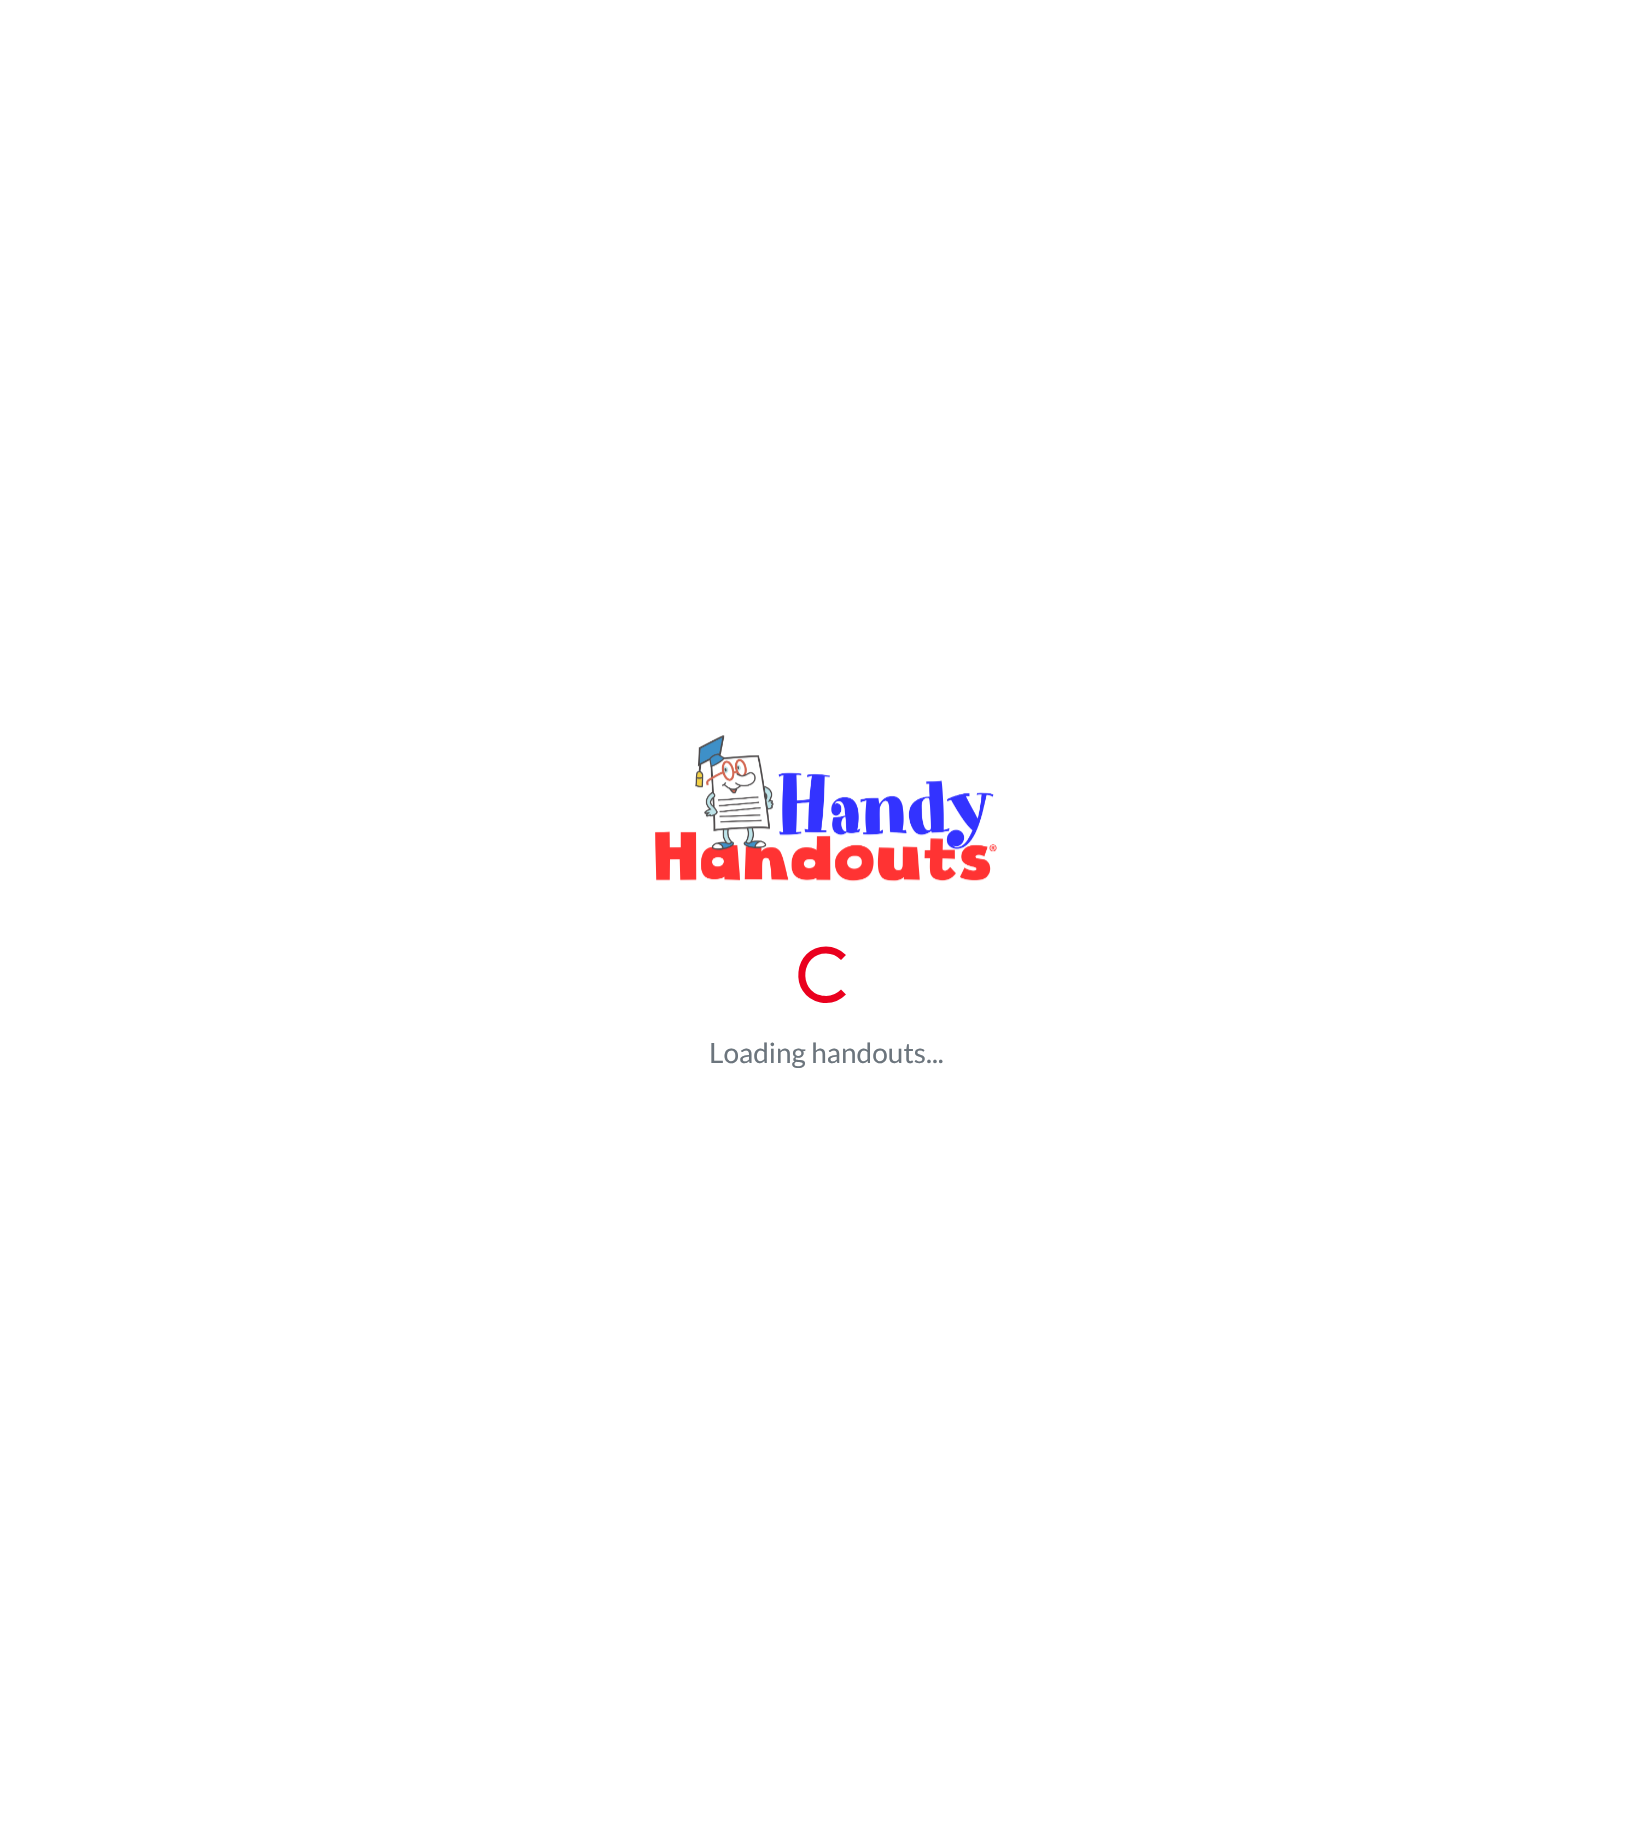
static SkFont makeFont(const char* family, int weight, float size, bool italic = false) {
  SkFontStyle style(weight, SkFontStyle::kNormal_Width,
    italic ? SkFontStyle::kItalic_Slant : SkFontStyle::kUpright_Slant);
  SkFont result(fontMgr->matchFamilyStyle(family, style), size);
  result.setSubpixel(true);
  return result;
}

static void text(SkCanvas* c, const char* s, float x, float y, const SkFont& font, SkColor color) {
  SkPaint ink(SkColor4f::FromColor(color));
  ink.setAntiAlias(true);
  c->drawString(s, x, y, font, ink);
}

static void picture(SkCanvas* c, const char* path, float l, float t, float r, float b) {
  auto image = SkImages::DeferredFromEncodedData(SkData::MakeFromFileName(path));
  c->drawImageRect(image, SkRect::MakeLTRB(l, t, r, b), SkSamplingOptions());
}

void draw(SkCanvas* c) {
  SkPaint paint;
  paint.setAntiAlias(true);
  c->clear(0xffffffff);
  picture(c, "img_01.png", 655, 735, 997, 882);
  paint.setStyle(SkPaint::kStroke_Style);
  paint.setStrokeWidth(7);
  paint.setColor(0xffea001e);
  c->drawPath(SkPathBuilder().moveTo(843.5f, 992).cubicTo(837.5f, 998, 829, 1000.5f, 821, 999).cubicTo(792.5f, 993, 797, 950, 826, 950).cubicTo(832.5f, 950, 839, 953, 843.5f, 957.5f).detach(), paint);
  SkFont face1 = makeFont("Lato", 400, 28);
  text(c, "Loading handouts...", 709, 1063, face1, 0xff6c757d);
}
